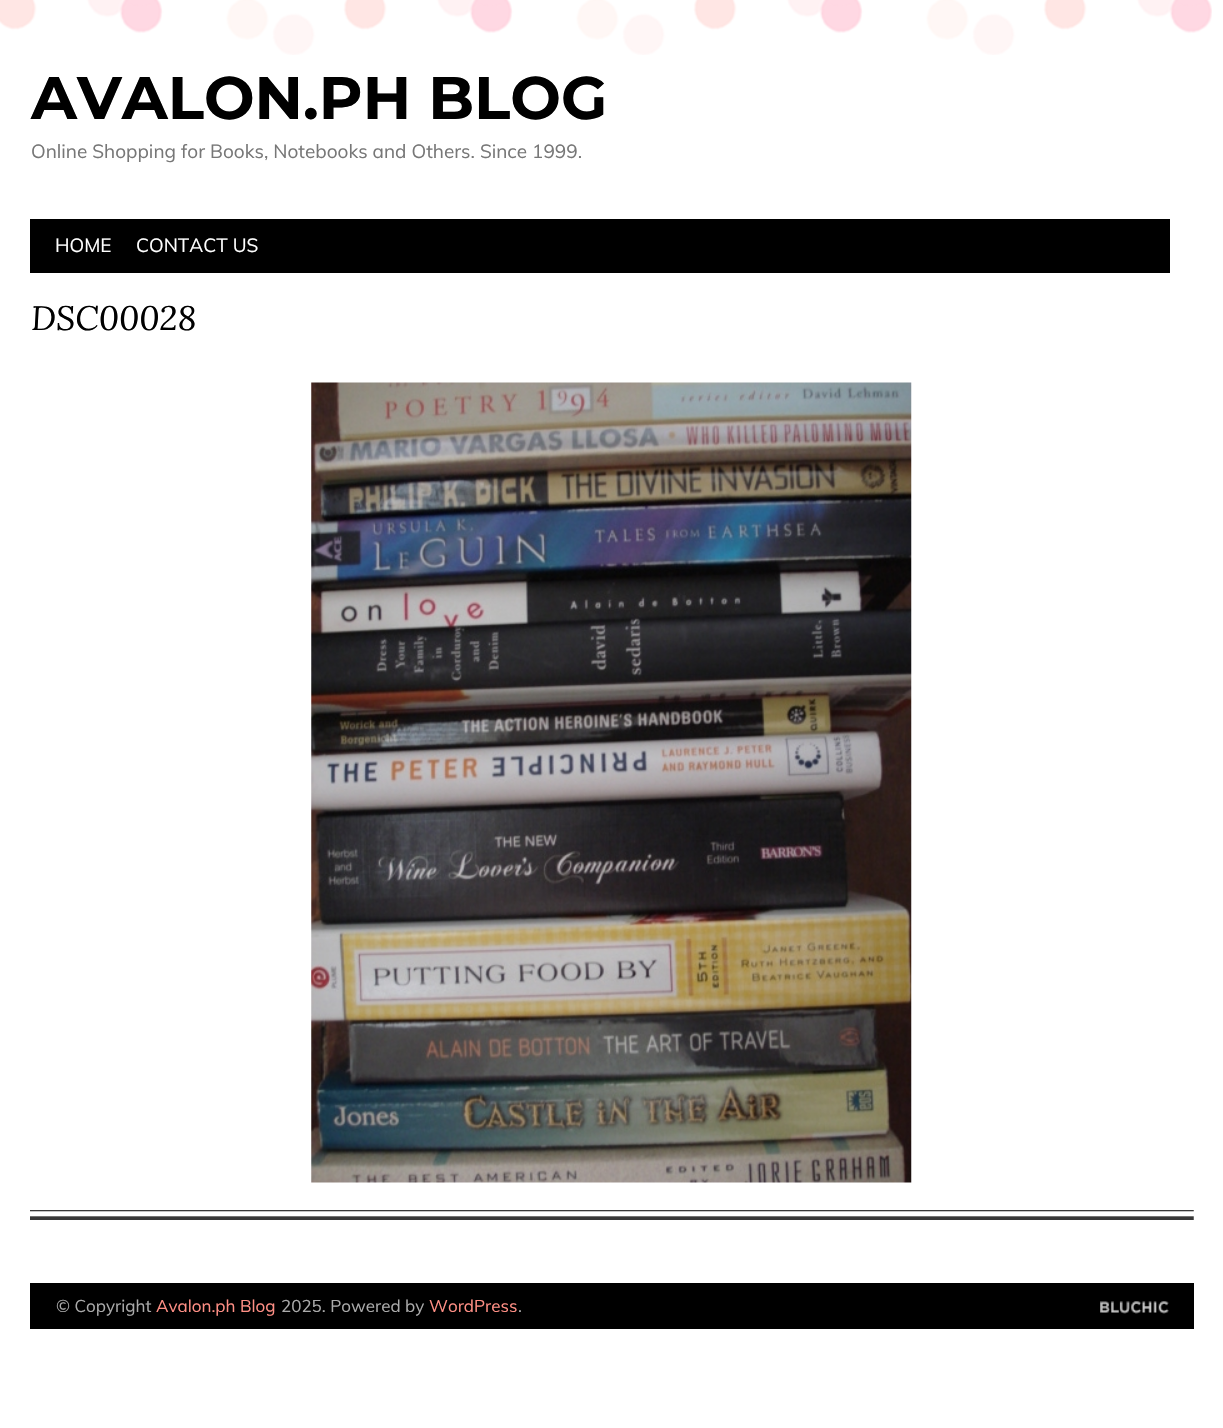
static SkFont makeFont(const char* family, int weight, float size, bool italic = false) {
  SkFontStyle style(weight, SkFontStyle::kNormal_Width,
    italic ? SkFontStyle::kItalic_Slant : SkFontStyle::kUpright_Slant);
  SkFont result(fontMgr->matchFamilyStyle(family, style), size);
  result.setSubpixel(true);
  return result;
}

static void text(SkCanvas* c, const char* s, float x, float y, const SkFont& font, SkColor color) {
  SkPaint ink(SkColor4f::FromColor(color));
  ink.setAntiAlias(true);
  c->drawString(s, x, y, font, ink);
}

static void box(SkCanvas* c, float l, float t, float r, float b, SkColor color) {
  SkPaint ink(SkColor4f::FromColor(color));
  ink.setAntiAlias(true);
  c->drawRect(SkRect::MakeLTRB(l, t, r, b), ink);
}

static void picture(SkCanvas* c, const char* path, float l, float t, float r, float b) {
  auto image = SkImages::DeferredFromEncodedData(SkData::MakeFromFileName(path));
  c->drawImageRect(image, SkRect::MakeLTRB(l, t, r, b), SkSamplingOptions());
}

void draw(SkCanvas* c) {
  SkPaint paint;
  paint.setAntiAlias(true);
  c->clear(0xffffffff);
  picture(c, "img_01.png", 0, 0, 1212, 55);
  SkFont face1 = makeFont("Montserrat", 700, 60);
  text(c, "AVALON.PH BLOG", 31, 119, face1, 0xff000000);
  SkFont face2 = makeFont("Muli", 400, 19);
  text(c, "Online Shopping for Books, Notebooks and Others. Since 1999.", 31, 158, face2, 0xff777777);
  box(c, 30, 219, 1170, 273, 0xff000000);
  text(c, "HOME", 55, 252, face2, 0xffffffff);
  text(c, "CONTACT US", 136, 252, face2, 0xffffffff);
  picture(c, "img_02.png", 30, 1210, 1194, 1220);
  SkFont face3 = makeFont("Lora", 400, 34, true);
  text(c, "DSC00028", 31, 330, face3, 0xff000000);
  picture(c, "img_03.png", 311, 382, 912, 1183);
  box(c, 30, 1283, 1194, 1329, 0xff000000);
  SkFont face4 = makeFont("Muli", 400, 17);
  text(c, "© Copyright", 56, 1312, face4, 0xffaaaaaa);
  text(c, "Avalon.ph Blog", 156, 1312, face4, 0xffff8f85);
  text(c, "2025. Powered by", 281, 1312, face4, 0xffaaaaaa);
  text(c, "WordPress", 429, 1312, face4, 0xffff8f85);
  text(c, ".", 518, 1312, face4, 0xffaaaaaa);
  picture(c, "img_04.png", 1100, 1301, 1169, 1314);
}
